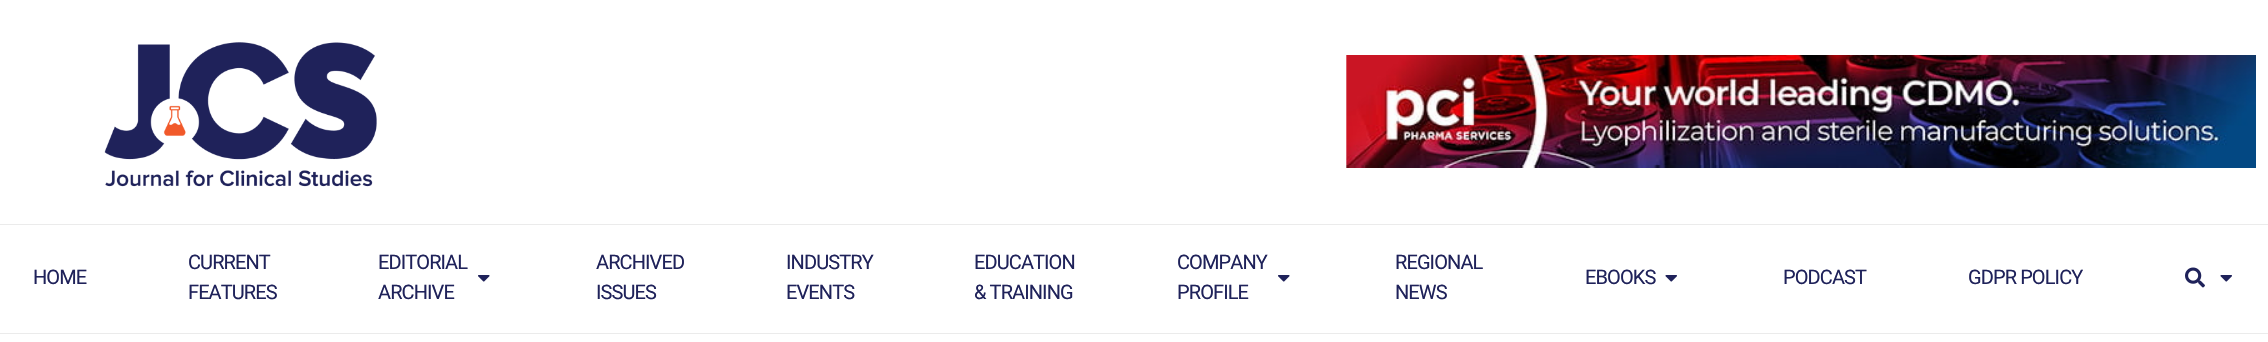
static SkFont makeFont(const char* family, int weight, float size, bool italic = false) {
  SkFontStyle style(weight, SkFontStyle::kNormal_Width,
    italic ? SkFontStyle::kItalic_Slant : SkFontStyle::kUpright_Slant);
  SkFont result(fontMgr->matchFamilyStyle(family, style), size);
  result.setSubpixel(true);
  return result;
}

static void spacedText(SkCanvas* c, const char* s, float x, float y, const SkFont& font, const SkPaint& ink, float letter, float word) {
  std::vector<SkGlyphID> glyphs(font.countText(s, strlen(s), SkTextEncoding::kUTF8));
  std::vector<float> xs(glyphs.size());
  font.textToGlyphs(s, strlen(s), SkTextEncoding::kUTF8, glyphs);
  font.getXPos(glyphs, xs, x);
  float extra = 0;
  for (size_t i = 0; i < glyphs.size(); i++) {
    xs[i] += extra;
    extra += letter + word * (glyphs[i] == font.unicharToGlyph(' '));
  }
  c->drawTextBlob(SkTextBlob::MakeFromPosHGlyphs(glyphs, xs, y, font), 0, 0, ink);
}

static void box(SkCanvas* c, float l, float t, float r, float b, SkColor color) {
  SkPaint ink(SkColor4f::FromColor(color));
  ink.setAntiAlias(true);
  c->drawRect(SkRect::MakeLTRB(l, t, r, b), ink);
}

static void picture(SkCanvas* c, const char* path, float l, float t, float r, float b) {
  auto image = SkImages::DeferredFromEncodedData(SkData::MakeFromFileName(path));
  c->drawImageRect(image, SkRect::MakeLTRB(l, t, r, b), SkSamplingOptions());
}

void draw(SkCanvas* c) {
  SkPaint paint;
  paint.setAntiAlias(true);
  c->clear(0xffffffff);
  picture(c, "img_01.png", 104, 42, 377, 187);
  picture(c, "img_02.png", 1346, 55, 2256, 168);
  box(c, 0, 224, 2268, 225, 0xffebebeb);
  box(c, 0, 333, 2268, 334, 0xffebebeb);
  SkFont face1 = makeFont("Roboto", 400, 20);
  paint.setColor(0xff1f225a);
  spacedText(c, "HOME", 33, 284, face1, paint, -0.9f, 0);
  spacedText(c, "CURRENT", 188, 269, face1, paint, -0.9f, 0);
  spacedText(c, "FEATURES", 188, 299, face1, paint, -0.9f, 0);
  spacedText(c, "EDITORIAL", 378, 269, face1, paint, -0.9f, 0);
  spacedText(c, "ARCHIVE", 378, 299, face1, paint, -0.9f, 0);
  picture(c, "img_03.png", 478, 275, 490, 282);
  spacedText(c, "ARCHIVED", 596, 269, face1, paint, -0.9f, 0);
  spacedText(c, "ISSUES", 596, 299, face1, paint, -0.9f, 0);
  spacedText(c, "INDUSTRY", 786, 269, face1, paint, -0.9f, 0);
  spacedText(c, "EVENTS", 786, 299, face1, paint, -0.9f, 0);
  spacedText(c, "EDUCATION", 974, 269, face1, paint, -0.9f, 0);
  spacedText(c, "& TRAINING", 974, 299, face1, paint, -0.9f, 0);
  spacedText(c, "COMPANY", 1177, 269, face1, paint, -0.9f, 0);
  spacedText(c, "PROFILE", 1177, 299, face1, paint, -0.9f, 0);
  picture(c, "img_03.png", 1278, 275, 1290, 282);
  spacedText(c, "REGIONAL", 1395, 269, face1, paint, -0.9f, 0);
  spacedText(c, "NEWS", 1395, 299, face1, paint, -0.9f, 0);
  spacedText(c, "EBOOKS", 1585, 284, face1, paint, -0.9f, 0);
  picture(c, "img_04.png", 1665, 275, 1677, 282);
  spacedText(c, "PODCAST", 1783, 284, face1, paint, -0.9f, 0);
  spacedText(c, "GDPR POLICY", 1968, 284, face1, paint, -0.9f, 0);
  picture(c, "img_05.png", 2185, 267, 2205, 288);
  picture(c, "img_04.png", 2220, 275, 2232, 282);
}
